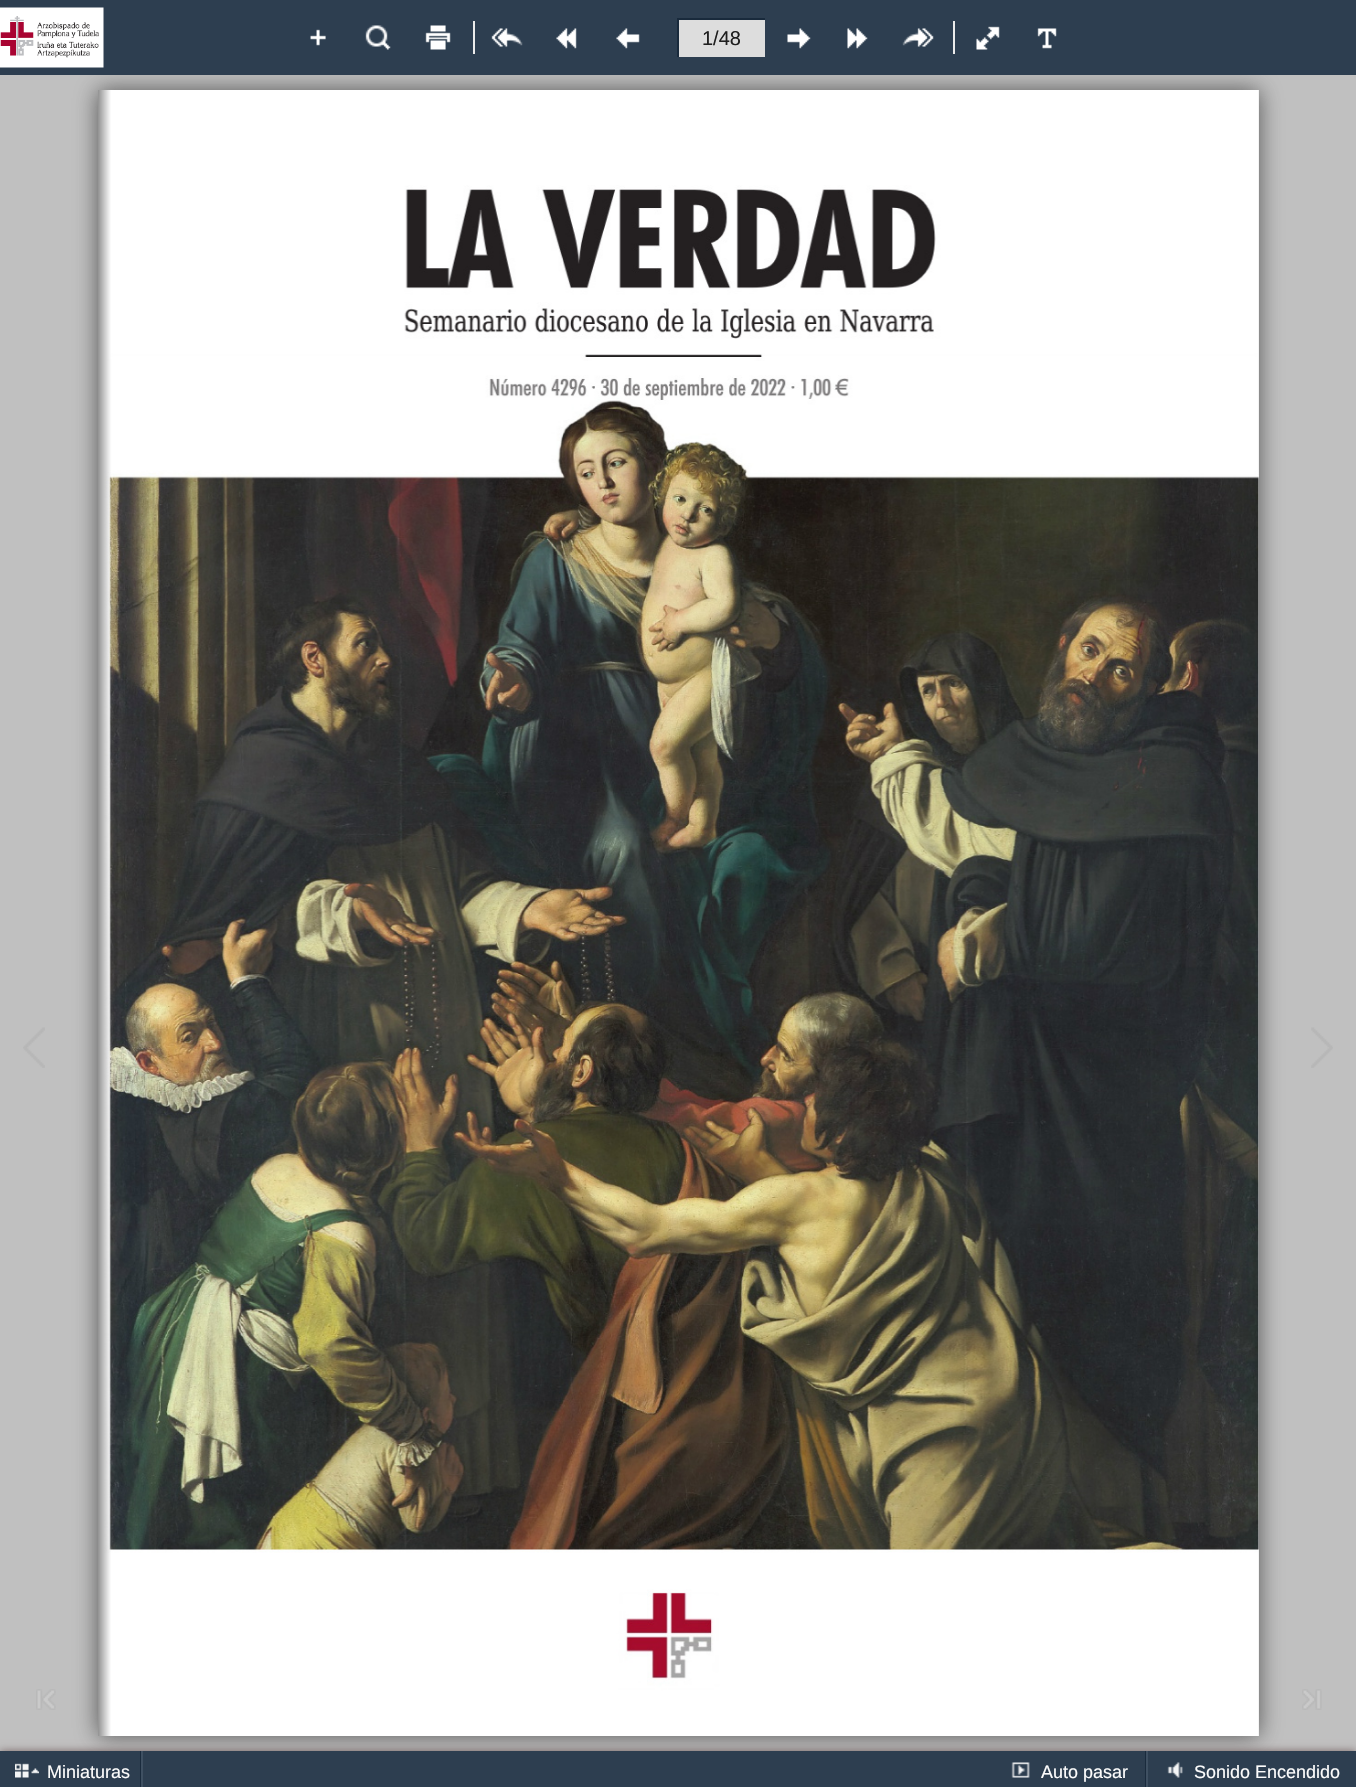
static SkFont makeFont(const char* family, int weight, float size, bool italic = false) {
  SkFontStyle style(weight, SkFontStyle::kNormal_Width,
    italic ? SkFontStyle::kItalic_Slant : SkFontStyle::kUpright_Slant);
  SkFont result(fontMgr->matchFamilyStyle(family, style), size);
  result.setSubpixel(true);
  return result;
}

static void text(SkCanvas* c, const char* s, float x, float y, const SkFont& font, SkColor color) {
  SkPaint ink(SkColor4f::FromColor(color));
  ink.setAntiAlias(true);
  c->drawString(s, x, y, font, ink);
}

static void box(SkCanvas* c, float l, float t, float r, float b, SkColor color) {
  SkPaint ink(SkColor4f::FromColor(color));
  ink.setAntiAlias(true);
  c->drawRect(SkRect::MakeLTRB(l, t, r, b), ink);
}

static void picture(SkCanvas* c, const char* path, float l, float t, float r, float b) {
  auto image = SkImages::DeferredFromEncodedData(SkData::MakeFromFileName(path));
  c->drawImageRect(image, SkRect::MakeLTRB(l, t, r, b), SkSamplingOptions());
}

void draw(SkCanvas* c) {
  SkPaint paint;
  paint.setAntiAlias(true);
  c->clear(0xffc0c0c0);
  paint.setColor(0xb3282828);
  paint.setMaskFilter(SkMaskFilter::MakeBlur(kNormal_SkBlurStyle, 11));
  c->drawRect(SkRect::MakeLTRB(98, 90, 1259, 1736), paint);
  paint.setMaskFilter(nullptr);
  box(c, 0, 0, 1356, 75, 0xff2d3e50);
  picture(c, "img_01.png", 0, 7, 104, 68);
  picture(c, "img_02.png", 310, 29, 326, 46);
  picture(c, "img_03.png", 365, 25, 391, 50);
  picture(c, "img_04.png", 425, 25, 451, 50);
  box(c, 473, 21, 475, 54, 0xffebebeb);
  picture(c, "img_05.png", 491, 28, 523, 48);
  picture(c, "img_06.png", 556, 28, 577, 49);
  picture(c, "img_07.png", 616, 28, 640, 49);
  box(c, 679, 20, 765, 57, 0xffdddddd);
  box(c, 677, 18, 765, 20, 0xff192a3c);
  box(c, 677, 18, 679, 57, 0xff192a3c);
  SkFont face1 = makeFont("Liberation Sans", 400, 20);
  text(c, "1/48", 702, 45, face1, 0xff1f1f1f);
  picture(c, "img_08.png", 787, 28, 811, 49);
  picture(c, "img_09.png", 847, 28, 868, 49);
  picture(c, "img_10.png", 902, 28, 934, 47);
  box(c, 953, 21, 955, 54, 0xffebebeb);
  picture(c, "img_11.png", 976, 26, 1000, 50);
  picture(c, "img_12.png", 1037, 28, 1057, 49);
  picture(c, "img_13.png", 23, 1027, 45, 1068);
  box(c, 1258, 90, 1259, 1736, 0xffe8e8e8);
  picture(c, "img_14.png", 98, 90, 1259, 1736);
  picture(c, "img_15.png", 1311, 1027, 1333, 1068);
  picture(c, "img_16.png", 36, 1689, 56, 1710);
  picture(c, "img_17.png", 1302, 1689, 1322, 1710);
  paint.setColor(0x78280000);
  paint.setMaskFilter(SkMaskFilter::MakeBlur(kNormal_SkBlurStyle, 4));
  c->drawRect(SkRect::MakeLTRB(0, 1751, 1356, 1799), paint);
  paint.setMaskFilter(nullptr);
  box(c, 0, 1751, 1356, 1787, 0xff2d3e50);
  picture(c, "img_18.png", 15, 1763, 39, 1778);
  SkFont face2 = makeFont("Liberation Sans", 400, 18);
  text(c, "Miniaturas", 47, 1778, face2, 0xfffcfcfc);
  box(c, 140, 1751, 141, 1787, 0xff1a2b3d);
  box(c, 141, 1751, 143, 1787, 0xff3f5062);
  picture(c, "img_19.png", 1011, 1762, 1030, 1778);
  text(c, "Auto pasar", 1041, 1778, face2, 0xfffcfcfc);
  box(c, 1145, 1751, 1146, 1787, 0xff1a2b3d);
  box(c, 1146, 1751, 1148, 1787, 0xff3f5062);
  picture(c, "img_20.png", 1167, 1762, 1183, 1778);
  text(c, "Sonido Encendido", 1194, 1778, face2, 0xfffcfcfc);
}
